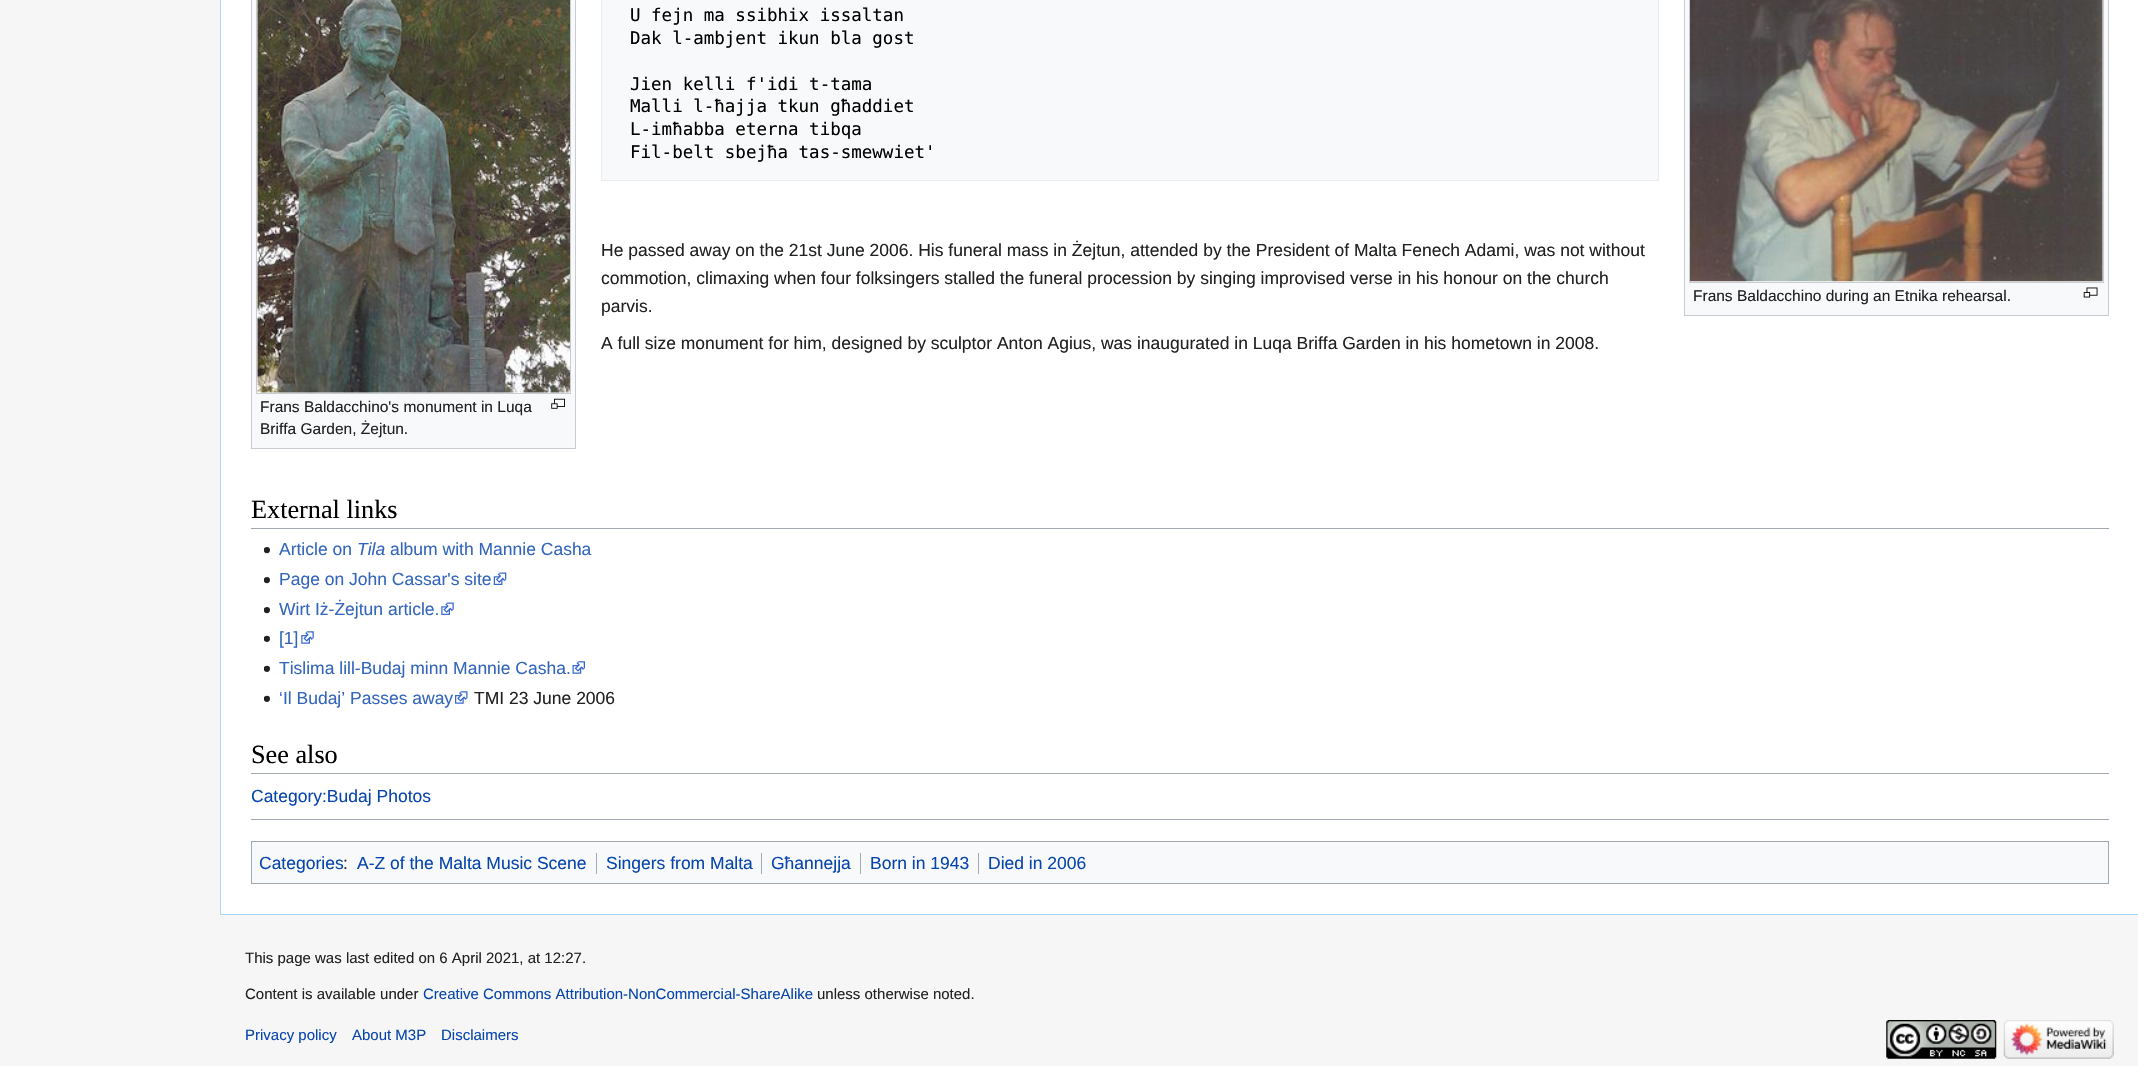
static SkFont makeFont(const char* family, int weight, float size, bool italic = false) {
  SkFontStyle style(weight, SkFontStyle::kNormal_Width,
    italic ? SkFontStyle::kItalic_Slant : SkFontStyle::kUpright_Slant);
  SkFont result(fontMgr->matchFamilyStyle(family, style), size);
  result.setSubpixel(true);
  return result;
}

static void text(SkCanvas* c, const char* s, float x, float y, const SkFont& font, SkColor color) {
  SkPaint ink(SkColor4f::FromColor(color));
  ink.setAntiAlias(true);
  c->drawString(s, x, y, font, ink);
}

static void box(SkCanvas* c, float l, float t, float r, float b, SkColor color) {
  SkPaint ink(SkColor4f::FromColor(color));
  ink.setAntiAlias(true);
  c->drawRect(SkRect::MakeLTRB(l, t, r, b), ink);
}

static void picture(SkCanvas* c, const char* path, float l, float t, float r, float b) {
  auto image = SkImages::DeferredFromEncodedData(SkData::MakeFromFileName(path));
  c->drawImageRect(image, SkRect::MakeLTRB(l, t, r, b), SkSamplingOptions());
}

void draw(SkCanvas* c) {
  SkPaint paint;
  paint.setAntiAlias(true);
  c->clear(0xfff6f6f6);
  box(c, 221, 0, 2138, 914, 0xffffffff);
  box(c, 220, 914, 2138, 915, 0xffa7d7f9);
  box(c, 220, 0, 221, 915, 0xffa7d7f9);
  paint.setColor(0xfff8f9fa);
  c->drawRect(SkRect::MakeLTRB(601.5f, -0.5f, 1658.5f, 180.5f), paint);
  paint.setStyle(SkPaint::kStroke_Style);
  paint.setStrokeWidth(1);
  paint.setColor(0xffeaecf0);
  c->drawRect(SkRect::MakeLTRB(601.5f, -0.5f, 1658.5f, 180.5f), paint);
  SkFont face1 = makeFont("DejaVu Sans Mono", 400, 17.5f);
  text(c, "U fejn ma ssibhix issaltan", 630, 21, face1, 0xff000000);
  text(c, "Dak l-ambjent ikun bla gost", 630, 44, face1, 0xff000000);
  text(c, "Jien kelli f'idi t-tama", 630, 90, face1, 0xff000000);
  text(c, "Malli l-ħajja tkun għaddiet", 630, 112, face1, 0xff000000);
  text(c, "L-imħabba eterna tibqa", 630, 135, face1, 0xff000000);
  text(c, "Fil-belt sbejħa tas-smewwiet'", 630, 158, face1, 0xff000000);
  SkFont face2 = makeFont("Liberation Sans", 400, 17.5f);
  text(c, "He passed away on the 21st June 2006. His funeral mass in Żejtun, attended by the President of Malta Fenech Adami, was not without", 601, 256, face2, 0xff202122);
  text(c, "commotion, climaxing when four folksingers stalled the funeral procession by singing improvised verse in his honour on the church", 601, 284, face2, 0xff202122);
  text(c, "parvis.", 601, 312, face2, 0xff202122);
  paint.setStyle(SkPaint::kFill_Style);
  paint.setColor(0xfff8f9fa);
  c->drawRect(SkRect::MakeLTRB(1684.5f, -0.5f, 2108.5f, 315.5f), paint);
  paint.setStyle(SkPaint::kStroke_Style);
  paint.setColor(0xffc8ccd1);
  c->drawRect(SkRect::MakeLTRB(1684.5f, -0.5f, 2108.5f, 315.5f), paint);
  paint.setStyle(SkPaint::kFill_Style);
  paint.setColor(0xffffffff);
  c->drawRect(SkRect::MakeLTRB(1689.5f, -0.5f, 2103.5f, 282.5f), paint);
  paint.setStyle(SkPaint::kStroke_Style);
  paint.setColor(0xffc8ccd1);
  c->drawRect(SkRect::MakeLTRB(1689.5f, -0.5f, 2103.5f, 282.5f), paint);
  picture(c, "img_01.png", 1690, 0, 2103, 282);
  SkFont face3 = makeFont("Liberation Sans", 400, 15.5f);
  text(c, "Frans Baldacchino during an Etnika rehearsal.", 1693, 301, face3, 0xff202122);
  picture(c, "img_02.png", 2083, 287, 2098, 298);
  text(c, "A full size monument for him, designed by sculptor Anton Agius, was inaugurated in Luqa Briffa Garden in his hometown in 2008.", 601, 349, face2, 0xff202122);
  paint.setStyle(SkPaint::kFill_Style);
  paint.setColor(0xfff8f9fa);
  c->drawRect(SkRect::MakeLTRB(251.5f, -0.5f, 575.5f, 448.5f), paint);
  paint.setStyle(SkPaint::kStroke_Style);
  paint.setColor(0xffc8ccd1);
  c->drawRect(SkRect::MakeLTRB(251.5f, -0.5f, 575.5f, 448.5f), paint);
  paint.setStyle(SkPaint::kFill_Style);
  paint.setColor(0xffffffff);
  c->drawRect(SkRect::MakeLTRB(256.5f, -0.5f, 570.5f, 393.5f), paint);
  paint.setStyle(SkPaint::kStroke_Style);
  paint.setColor(0xffc8ccd1);
  c->drawRect(SkRect::MakeLTRB(256.5f, -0.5f, 570.5f, 393.5f), paint);
  picture(c, "img_03.png", 257, 0, 570, 393);
  text(c, "Frans Baldacchino's monument in Luqa", 260, 412, face3, 0xff202122);
  picture(c, "img_04.png", 551, 398, 565, 409);
  text(c, "Briffa Garden, Żejtun.", 260, 434, face3, 0xff202122);
  box(c, 251, 528, 2109, 529, 0xffa2a9b1);
  SkFont face4 = makeFont("Liberation Serif", 400, 26.25f);
  text(c, "External links", 251, 518, face4, 0xff000000);
  picture(c, "img_05.png", 264, 547, 270, 554);
  text(c, "Article on", 279, 555, face2, 0xff3366bb);
  SkFont face5 = makeFont("Liberation Sans", 400, 17.5f, true);
  text(c, "Tila", 357, 555, face5, 0xff3366bb);
  text(c, "album with Mannie Casha", 390, 555, face2, 0xff3366bb);
  picture(c, "img_05.png", 264, 577, 270, 584);
  text(c, "Page on John Cassar's site", 279, 585, face2, 0xff3366bb);
  picture(c, "img_06.png", 493, 572, 507, 585);
  picture(c, "img_05.png", 264, 607, 270, 614);
  text(c, "Wirt Iż-Żejtun article.", 279, 615, face2, 0xff3366bb);
  picture(c, "img_07.png", 441, 602, 454, 615);
  picture(c, "img_08.png", 264, 635, 270, 642);
  text(c, "[1]", 279, 644, face2, 0xff3366bb);
  picture(c, "img_09.png", 301, 631, 314, 644);
  picture(c, "img_08.png", 264, 665, 270, 672);
  text(c, "Tislima lill-Budaj minn Mannie Casha.", 279, 674, face2, 0xff3366bb);
  picture(c, "img_10.png", 572, 661, 585, 674);
  picture(c, "img_08.png", 264, 695, 270, 702);
  text(c, "‘Il Budaj’ Passes away", 279, 704, face2, 0xff3366bb);
  picture(c, "img_11.png", 455, 691, 468, 704);
  text(c, "TMI 23 June 2006", 474, 704, face2, 0xff202122);
  box(c, 251, 773, 2109, 774, 0xffa2a9b1);
  text(c, "See also", 251, 763, face4, 0xff000000);
  text(c, "Category:Budaj Photos", 251, 802, face2, 0xff0645ad);
  box(c, 251, 819, 2109, 820, 0xffa2a9b1);
  paint.setStyle(SkPaint::kFill_Style);
  paint.setColor(0xfff8f9fa);
  c->drawRect(SkRect::MakeLTRB(251.5f, 841.5f, 2108.5f, 883.5f), paint);
  paint.setStyle(SkPaint::kStroke_Style);
  paint.setColor(0xffa2a9b1);
  c->drawRect(SkRect::MakeLTRB(251.5f, 841.5f, 2108.5f, 883.5f), paint);
  text(c, "Categories", 259, 869, face2, 0xff0645ad);
  text(c, ":", 343, 869, face2, 0xff202122);
  text(c, "A-Z of the Malta Music Scene", 357, 869, face2, 0xff0645ad);
  box(c, 596, 853, 597, 874, 0xffa2a9b1);
  text(c, "Singers from Malta", 606, 869, face2, 0xff0645ad);
  box(c, 761, 853, 762, 874, 0xffa2a9b1);
  text(c, "Għannejja", 771, 869, face2, 0xff0645ad);
  box(c, 860, 853, 861, 874, 0xffa2a9b1);
  text(c, "Born in 1943", 870, 869, face2, 0xff0645ad);
  box(c, 978, 853, 979, 874, 0xffa2a9b1);
  text(c, "Died in 2006", 988, 869, face2, 0xff0645ad);
  SkFont face6 = makeFont("Liberation Sans", 400, 15);
  text(c, "This page was last edited on 6 April 2021, at 12:27.", 245, 963, face6, 0xff202122);
  text(c, "Content is available under", 245, 999, face6, 0xff202122);
  text(c, "Creative Commons Attribution-NonCommercial-ShareAlike", 423, 999, face6, 0xff0645ad);
  text(c, "unless otherwise noted.", 817, 999, face6, 0xff202122);
  text(c, "Privacy policy", 245, 1040, face6, 0xff0645ad);
  text(c, "About M3P", 352, 1040, face6, 0xff0645ad);
  text(c, "Disclaimers", 441, 1040, face6, 0xff0645ad);
  picture(c, "img_12.png", 1886, 1020, 1997, 1059);
  picture(c, "img_13.png", 2003, 1020, 2114, 1059);
}
